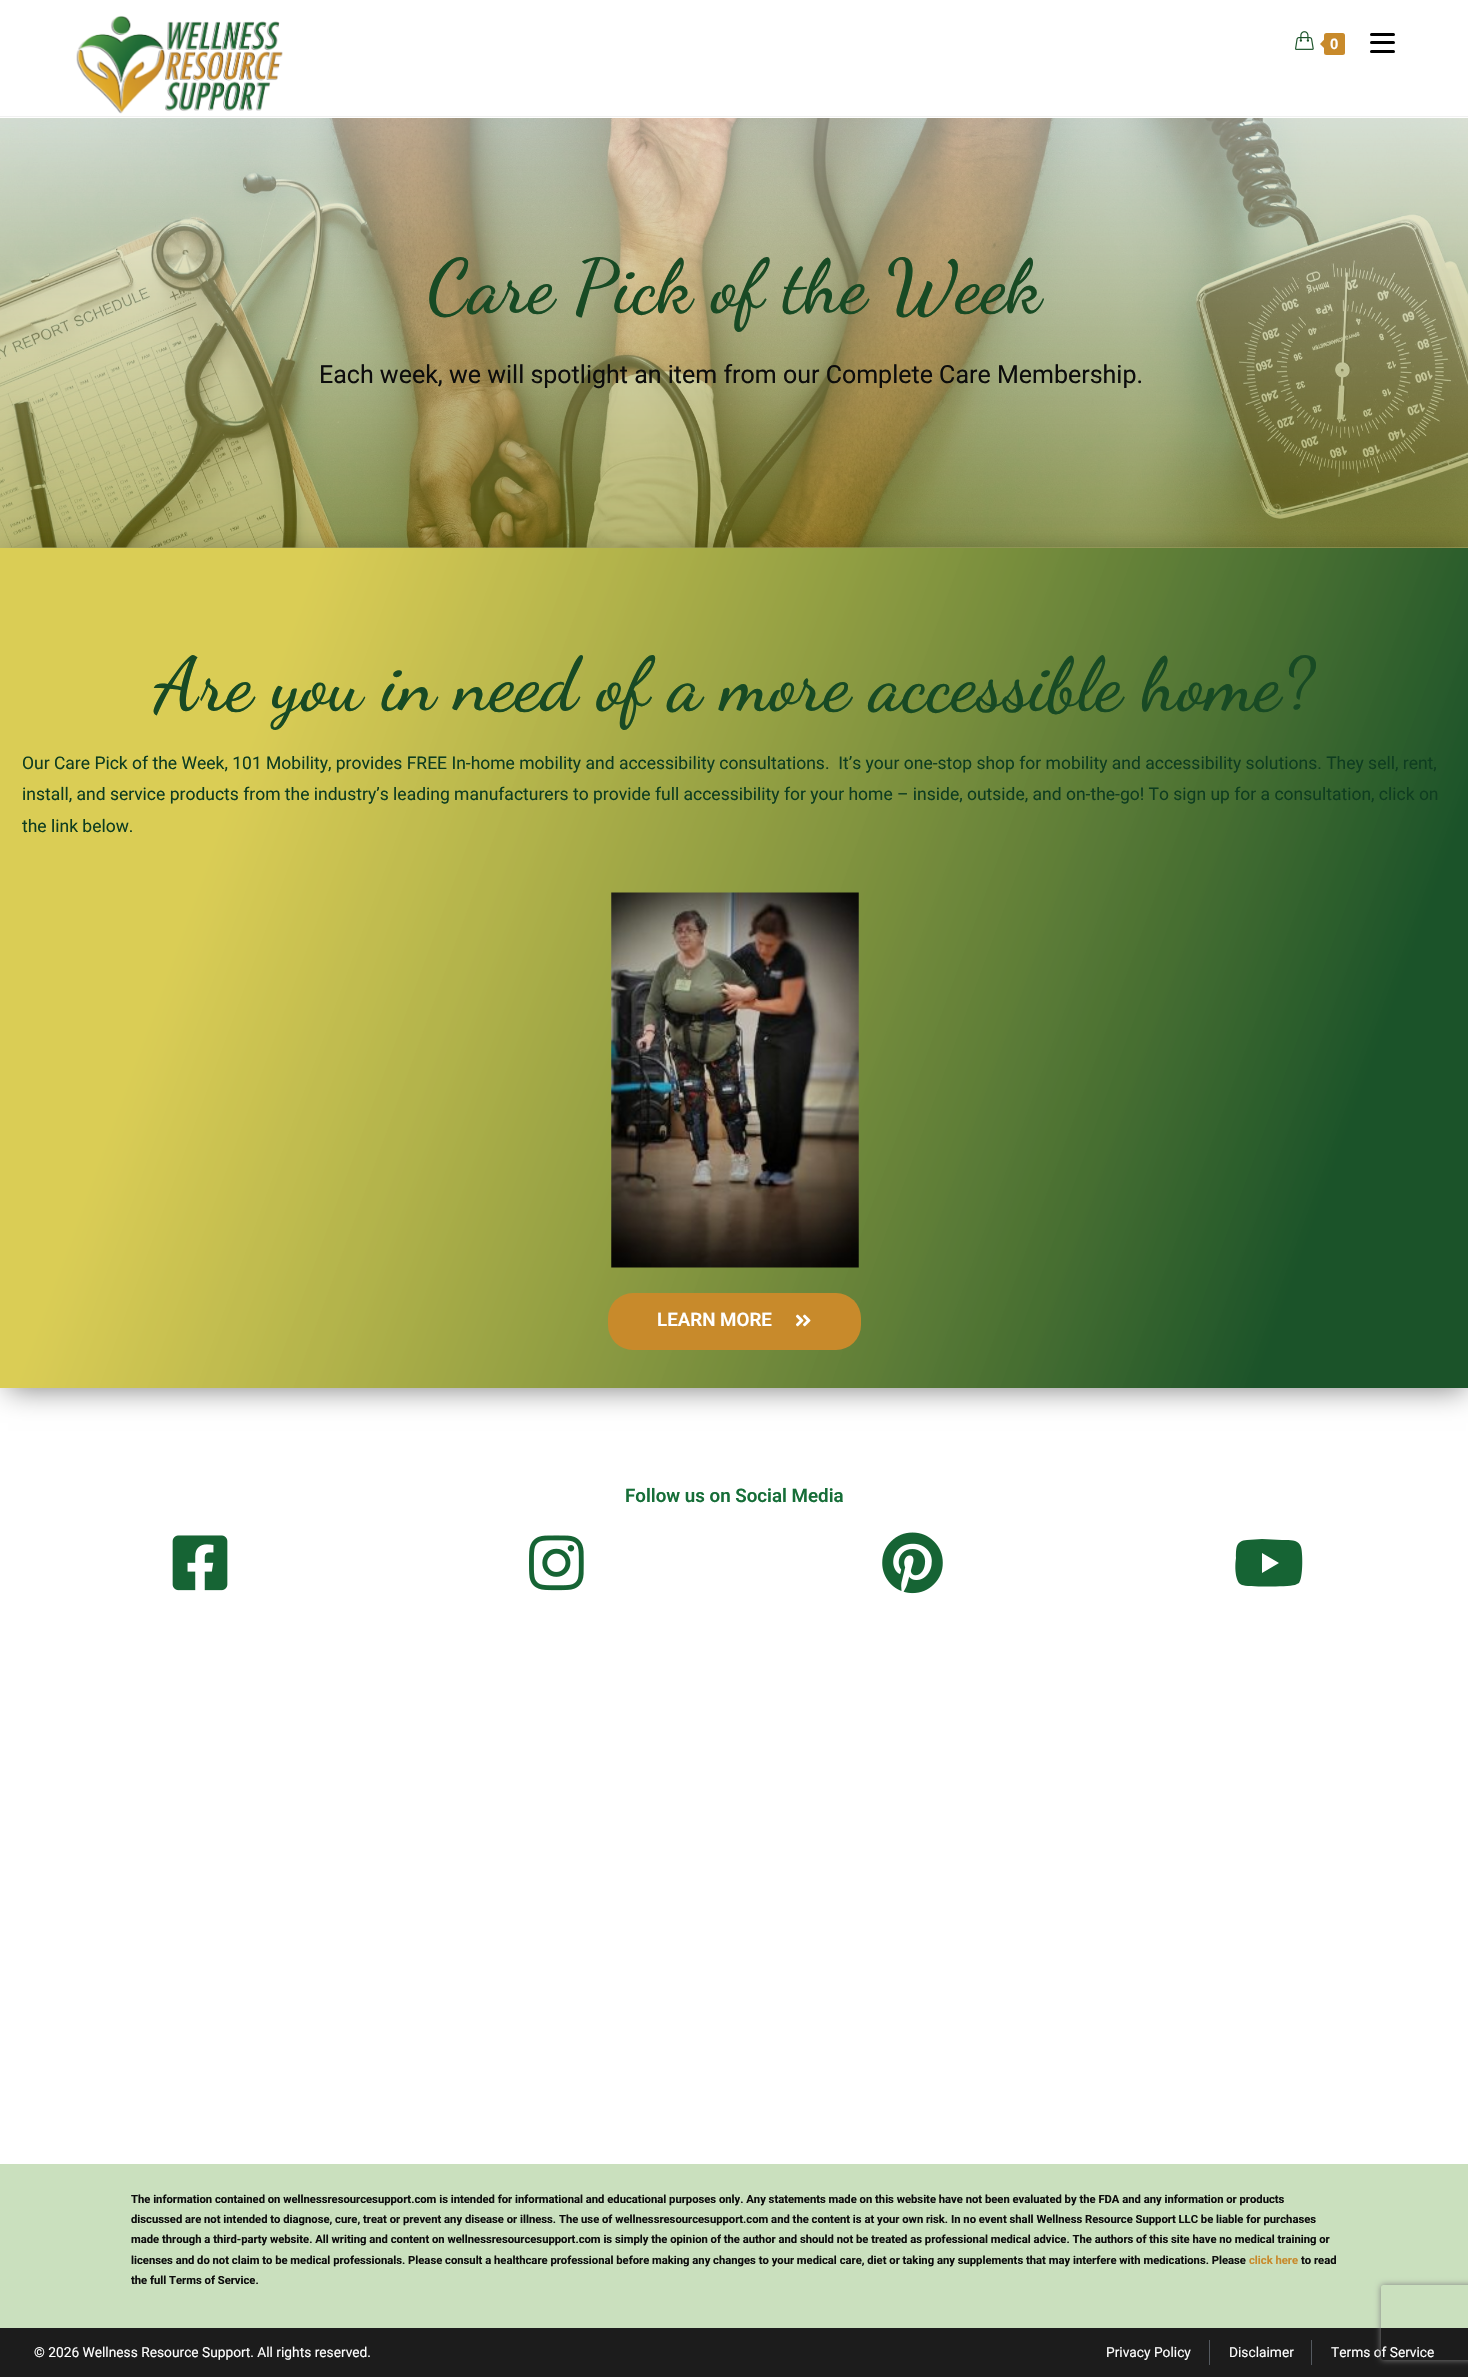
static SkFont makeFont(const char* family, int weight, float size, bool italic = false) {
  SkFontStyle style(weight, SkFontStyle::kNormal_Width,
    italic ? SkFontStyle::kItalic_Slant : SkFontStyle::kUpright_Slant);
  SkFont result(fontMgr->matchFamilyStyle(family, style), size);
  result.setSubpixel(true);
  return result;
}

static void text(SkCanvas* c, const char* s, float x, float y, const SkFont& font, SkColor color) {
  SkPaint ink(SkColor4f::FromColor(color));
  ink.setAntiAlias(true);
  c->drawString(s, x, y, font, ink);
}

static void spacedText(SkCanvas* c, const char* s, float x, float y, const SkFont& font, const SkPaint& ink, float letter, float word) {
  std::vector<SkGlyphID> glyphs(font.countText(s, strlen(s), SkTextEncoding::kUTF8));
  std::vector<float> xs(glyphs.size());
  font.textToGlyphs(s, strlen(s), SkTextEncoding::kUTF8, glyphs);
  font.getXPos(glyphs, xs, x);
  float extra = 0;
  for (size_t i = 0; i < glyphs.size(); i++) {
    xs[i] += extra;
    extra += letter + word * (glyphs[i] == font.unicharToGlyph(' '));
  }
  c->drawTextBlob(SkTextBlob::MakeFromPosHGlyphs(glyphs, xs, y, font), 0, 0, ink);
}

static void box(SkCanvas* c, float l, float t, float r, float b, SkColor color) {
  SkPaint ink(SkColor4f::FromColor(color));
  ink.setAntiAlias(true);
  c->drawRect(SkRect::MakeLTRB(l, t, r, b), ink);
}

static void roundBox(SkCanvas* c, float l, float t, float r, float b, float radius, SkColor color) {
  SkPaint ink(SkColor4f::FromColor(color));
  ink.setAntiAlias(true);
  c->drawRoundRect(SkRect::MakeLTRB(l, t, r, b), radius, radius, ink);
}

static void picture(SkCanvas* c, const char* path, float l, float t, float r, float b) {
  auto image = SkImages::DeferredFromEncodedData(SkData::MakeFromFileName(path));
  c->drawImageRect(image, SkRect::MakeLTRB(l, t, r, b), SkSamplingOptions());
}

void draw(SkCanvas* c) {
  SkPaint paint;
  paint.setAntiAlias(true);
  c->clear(0xffffffff);
  box(c, 0, 116, 1468, 117, 0xfff1f1f1);
  picture(c, "img_01.png", 76, 15, 283, 114);
  picture(c, "img_02.png", 1295, 31, 1314, 50);
  roundBox(c, 1324, 33, 1345, 55, 2.5f, 0xffc88a2b);
  paint.setColor(0xffc88a2b);
  c->drawPath(SkPathBuilder().moveTo(1326, 37.5f).lineTo(1326, 50).lineTo(1320, 44).close().detach(), paint);
  SkFont face1 = makeFont("Liberation Sans", 700, 15);
  paint.setColor(0xffffffff);
  spacedText(c, "0", 1330, 49, face1, paint, 1, 0);
  roundBox(c, 1370, 41, 1395, 44, 1.5f, 0xff000000);
  roundBox(c, 1370, 33, 1395, 36, 1.5f, 0xff000000);
  roundBox(c, 1370, 50, 1395, 53, 1.5f, 0xff000000);
  picture(c, "img_03.png", 0, 118, 1468, 548);
  {
    const SkColor colors[] = {0x99ffffff, 0x998e8a13};
    const float stops[] = {0, 1};
    const SkPoint ends[] = {{734, 0}, {734, 548}};
    paint.setShader(SkGradientShader::MakeLinear(ends, colors, stops, 2, SkTileMode::kClamp));
    paint.setAlpha(255);
  }
  c->drawRect(SkRect::MakeLTRB(0, 118, 1468, 548), paint);
  SkFont face2 = makeFont("Dancing Script", 600, 75);
  text(c, "Care Pick of the Week", 427, 311, face2, 0xff184a24);
  SkFont face3 = makeFont("Roboto", 400, 25);
  text(c, "Each week, we will spotlight an item from our Complete Care Membership.", 319, 383, face3, 0xff0c0c0c);
  c->save();
  c->clipPath(SkPathBuilder(SkPathFillType::kEvenOdd).moveTo(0, 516).lineTo(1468, 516).lineTo(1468, 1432).lineTo(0, 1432).close().moveTo(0, 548).lineTo(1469, 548).lineTo(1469, 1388).lineTo(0, 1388).close().detach(), true);
  paint.setShader(nullptr);
  paint.setColor(0x80000000);
  paint.setMaskFilter(SkMaskFilter::MakeBlur(kNormal_SkBlurStyle, 14));
  c->drawRect(SkRect::MakeLTRB(8, 559, 1466, 1389), paint);
  paint.setMaskFilter(nullptr);
  c->restore();
  {
    const SkColor colors[] = {0xccd1c02b, 0xff1b5329};
    const float stops[] = {0.18f, 0.88f};
    const SkPoint ends[] = {{-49, 682}, {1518, 1253}};
    paint.setShader(SkGradientShader::MakeLinear(ends, colors, stops, 2, SkTileMode::kClamp));
    paint.setAlpha(255);
  }
  c->drawRect(SkRect::MakeLTRB(0, 548, 1468, 1388), paint);
  text(c, "Are you in need of a more accessible home?", 154, 709, face2, 0xff184a24);
  SkFont face4 = makeFont("Roboto", 400, 17.5f);
  text(c, "Our Care Pick of the Week, 101 Mobility, provides FREE In-home mobility and accessibility consultations.  It’s your one-stop shop for mobility and accessibility solutions. They sell, rent,", 22, 769, face4, 0xff0e3d20);
  text(c, "install, and service products from the industry’s leading manufacturers to provide full accessibility for your home – inside, outside, and on-the-go! To sign up for a consultation, click on", 22, 800, face4, 0xff0e3d20);
  text(c, "the link below.", 22, 832, face4, 0xff0e3d20);
  picture(c, "img_04.png", 611, 892, 859, 1268);
  roundBox(c, 608, 1293, 861, 1350, 25, 0xffc88a2b);
  SkFont face5 = makeFont("Roboto", 600, 18.75f);
  text(c, "LEARN MORE", 657, 1326, face5, 0xffffffff);
  picture(c, "img_05.png", 796, 1314, 811, 1327);
  text(c, "Follow us on Social Media", 625, 1502, face5, 0xff166e38);
  picture(c, "img_06.png", 172, 1535, 228, 1591);
  picture(c, "img_07.png", 529, 1535, 584, 1591);
  picture(c, "img_08.png", 882, 1532, 943, 1594);
  paint.setShader(nullptr);
  paint.setColor(0xff166434);
  c->drawPath(SkPathBuilder().moveTo(1301, 1547).cubicTo(1303, 1554, 1303, 1578, 1299, 1583).lineTo(1295, 1585).cubicTo(1286, 1587, 1247, 1587, 1242, 1585).cubicTo(1239, 1584, 1238, 1582, 1237, 1579).cubicTo(1235, 1573, 1235, 1564, 1236, 1558).cubicTo(1236, 1547, 1236, 1541, 1247, 1540).lineTo(1262, 1539).lineTo(1282, 1540).cubicTo(1288, 1540, 1299, 1539, 1301, 1547).close().moveTo(1262, 1573).lineTo(1279, 1563).lineTo(1262, 1553).close().detach(), paint);
  box(c, 0, 2164, 1468, 2328, 0xffcae0be);
  SkFont face6 = makeFont("Roboto", 700, 11.25f);
  text(c, "The information contained on wellnessresourcesupport.com is intended for informational and educational purposes only. Any statements made on this website have not been evaluated by the FDA and any information or products", 131, 2203, face6, 0xff0c0c0c);
  text(c, "discussed are not intended to diagnose, cure, treat or prevent any disease or illness. The use of wellnessresourcesupport.com and the content is at your own risk. In no event shall Wellness Resource Support LLC be liable for purchases", 131, 2223, face6, 0xff0c0c0c);
  text(c, "made through a third-party website. All writing and content on wellnessresourcesupport.com is simply the opinion of the author and should not be treated as professional medical advice. The authors of this site have no medical training or", 131, 2243, face6, 0xff0c0c0c);
  text(c, "licenses and do not claim to be medical professionals. Please consult a healthcare professional before making any changes to your medical care, diet or taking any supplements that may interfere with medications. Please", 131, 2264, face6, 0xff0c0c0c);
  text(c, "click here", 1249, 2264, face6, 0xffc88a2b);
  text(c, "to read", 1301, 2264, face6, 0xff0c0c0c);
  text(c, "the full Terms of Service.", 131, 2284, face6, 0xff0c0c0c);
  box(c, 0, 2328, 1468, 2377, 0xff1c1c1c);
  SkFont face7 = makeFont("Roboto", 400, 13.75f);
  text(c, "© 2026 Wellness Resource Support. All rights reserved.", 34, 2357, face7, 0xffffffff);
  text(c, "Privacy Policy", 1106, 2357, face7, 0xffffffff);
  box(c, 1209, 2340, 1210, 2365, 0xff54595f);
  text(c, "Disclaimer", 1229, 2357, face7, 0xffffffff);
  box(c, 1311, 2340, 1312, 2365, 0xff54595f);
  text(c, "Terms of Service", 1331, 2357, face7, 0xffffffff);
  c->save();
  c->clipPath(SkPathBuilder(SkPathFillType::kEvenOdd).moveTo(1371, 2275).lineTo(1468, 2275).lineTo(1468, 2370).lineTo(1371, 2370).close().moveTo(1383.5f, 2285).lineTo(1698.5f, 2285).cubicTo(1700, 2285, 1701, 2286, 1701, 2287.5f).lineTo(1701, 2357.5f).cubicTo(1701, 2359, 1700, 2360, 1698.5f, 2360).lineTo(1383.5f, 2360).cubicTo(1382, 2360, 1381, 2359, 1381, 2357.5f).lineTo(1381, 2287.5f).cubicTo(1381, 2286, 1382, 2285, 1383.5f, 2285).close().detach(), true);
  paint.setColor(0xff808080);
  paint.setMaskFilter(SkMaskFilter::MakeBlur(kNormal_SkBlurStyle, 3));
  c->drawRoundRect(SkRect::MakeLTRB(1381, 2285, 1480, 2360), 2.5f, 2.5f, paint);
  paint.setMaskFilter(nullptr);
  c->restore();
}
